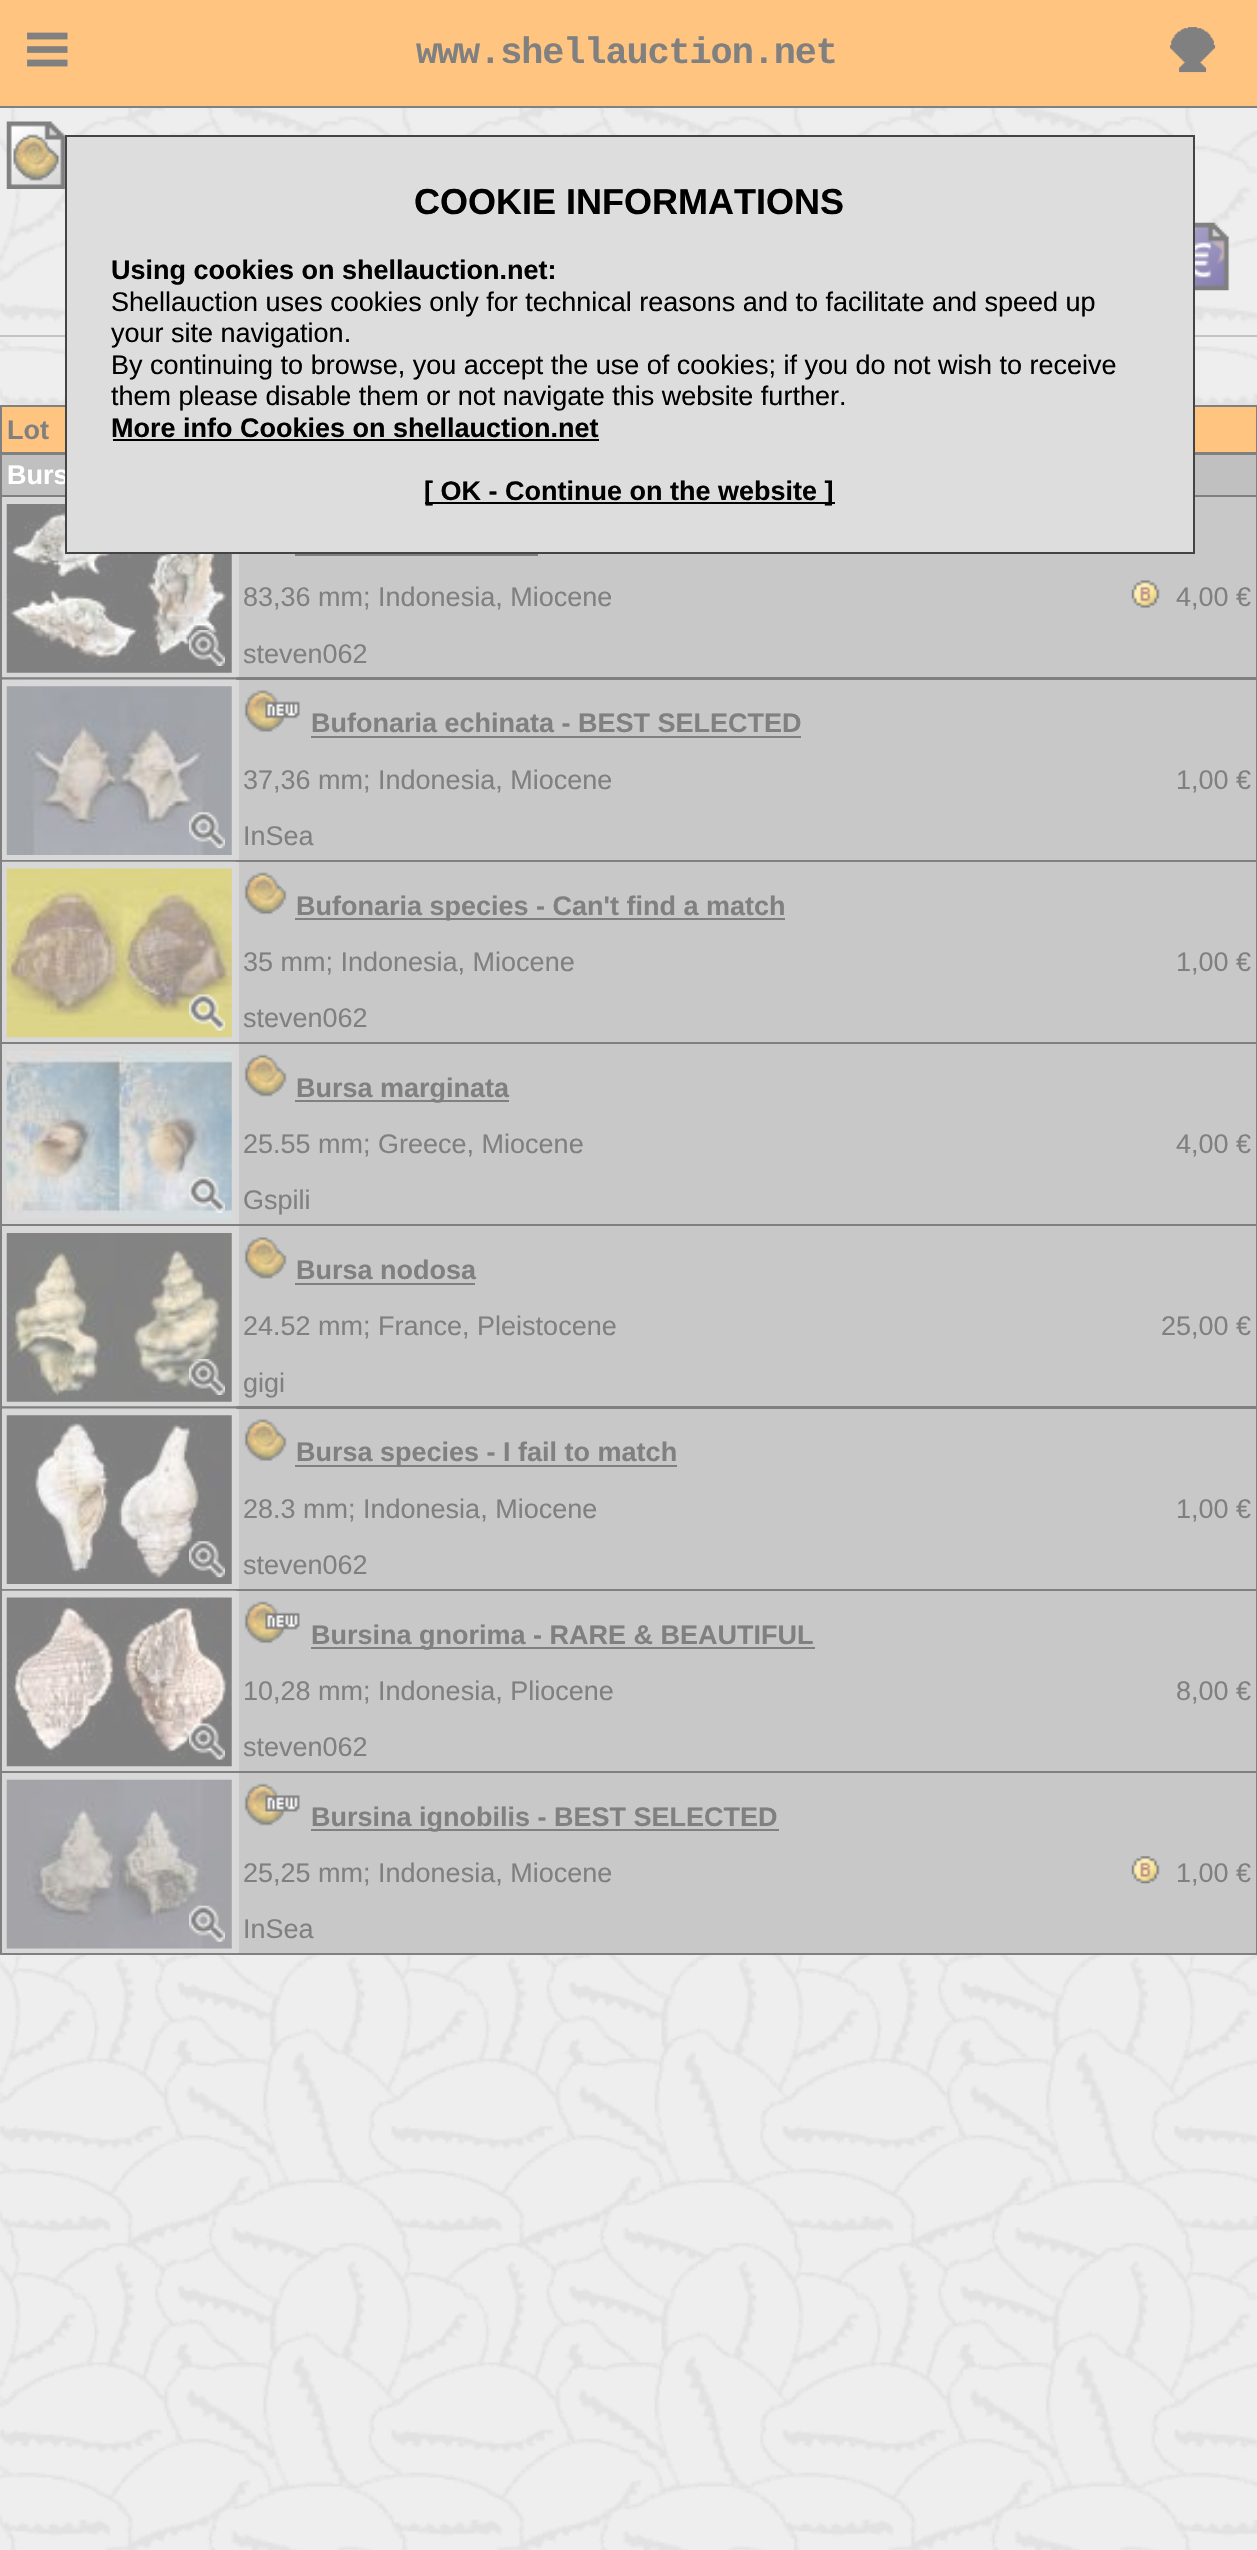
static SkFont makeFont(const char* family, int weight, float size, bool italic = false) {
  SkFontStyle style(weight, SkFontStyle::kNormal_Width,
    italic ? SkFontStyle::kItalic_Slant : SkFontStyle::kUpright_Slant);
  SkFont result(fontMgr->matchFamilyStyle(family, style), size);
  result.setSubpixel(true);
  return result;
}

static void text(SkCanvas* c, const char* s, float x, float y, const SkFont& font, SkColor color) {
  SkPaint ink(SkColor4f::FromColor(color));
  ink.setAntiAlias(true);
  c->drawString(s, x, y, font, ink);
}

static void spacedText(SkCanvas* c, const char* s, float x, float y, const SkFont& font, const SkPaint& ink, float letter, float word) {
  std::vector<SkGlyphID> glyphs(font.countText(s, strlen(s), SkTextEncoding::kUTF8));
  std::vector<float> xs(glyphs.size());
  font.textToGlyphs(s, strlen(s), SkTextEncoding::kUTF8, glyphs);
  font.getXPos(glyphs, xs, x);
  float extra = 0;
  for (size_t i = 0; i < glyphs.size(); i++) {
    xs[i] += extra;
    extra += letter + word * (glyphs[i] == font.unicharToGlyph(' '));
  }
  c->drawTextBlob(SkTextBlob::MakeFromPosHGlyphs(glyphs, xs, y, font), 0, 0, ink);
}

static void box(SkCanvas* c, float l, float t, float r, float b, SkColor color) {
  SkPaint ink(SkColor4f::FromColor(color));
  ink.setAntiAlias(true);
  c->drawRect(SkRect::MakeLTRB(l, t, r, b), ink);
}

static void picture(SkCanvas* c, const char* path, float l, float t, float r, float b) {
  auto image = SkImages::DeferredFromEncodedData(SkData::MakeFromFileName(path));
  c->drawImageRect(image, SkRect::MakeLTRB(l, t, r, b), SkSamplingOptions());
}

void draw(SkCanvas* c) {
  SkPaint paint;
  paint.setAntiAlias(true);
  c->clear(0xffffffff);
  picture(c, "img_01.png", 0, 108, 1257, 2550);
  box(c, 0, 0, 1257, 106, 0xffffc480);
  box(c, 0, 106, 1257, 108, 0xff808080);
  picture(c, "img_02.png", 27, 32, 68, 67);
  SkFont face1 = makeFont("Liberation Mono", 700, 36.9f);
  paint.setColor(0xff808080);
  spacedText(c, "www.shellauction.net", 416, 63, face1, paint, -1.1f, 0);
  picture(c, "img_03.png", 1170, 27, 1216, 73);
  box(c, 0, 335, 1257, 337, 0xffc4c4c4);
  picture(c, "img_04.png", 6, 121, 66, 189);
  picture(c, "img_05.png", 1195, 222, 1230, 291);
  box(c, 0, 405, 1257, 1955, 0xff808080);
  box(c, 2, 407, 1256, 452, 0xffffc480);
  box(c, 2, 455, 1256, 495, 0xffc0c0c0);
  SkFont face2 = makeFont("Liberation Sans", 700, 27);
  text(c, "Burs", 7, 484, face2, 0xffffffff);
  box(c, 2, 497, 239, 677, 0xffd8d8d8);
  picture(c, "img_06.png", 2, 504, 237, 678);
  box(c, 239, 497, 1256, 677, 0xffc8c8c8);
  paint.setColor(0xffdddddd);
  c->drawRect(SkRect::MakeLTRB(66, 136, 1194, 553), paint);
  paint.setStyle(SkPaint::kStroke_Style);
  paint.setStrokeWidth(2);
  paint.setColor(0xff444444);
  c->drawRect(SkRect::MakeLTRB(66, 136, 1194, 553), paint);
  SkFont face3 = makeFont("Liberation Sans", 700, 36);
  text(c, "COOKIE INFORMATIONS", 414, 214, face3, 0xff000000);
  text(c, "Using cookies on shellauction.net:", 111, 279, face2, 0xff000000);
  SkFont face4 = makeFont("Liberation Sans", 400, 27);
  text(c, "Shellauction uses cookies only for technical reasons and to facilitate and speed up", 111, 311, face4, 0xff000000);
  text(c, "your site navigation.", 111, 342, face4, 0xff000000);
  text(c, "By continuing to browse, you accept the use of cookies; if you do not wish to receive", 111, 374, face4, 0xff000000);
  text(c, "them please disable them or not navigate this website further.", 111, 405, face4, 0xff000000);
  text(c, "More info Cookies on shellauction.net", 111, 437, face2, 0xff000000);
  box(c, 113, 439, 599, 441, 0xff000000);
  box(c, 425, 502, 835, 504, 0xff000000);
  text(c, "[ OK - Continue on the website ]", 424, 500, face2, 0xff000000);
  text(c, "Lot", 7, 439, face2, 0xff808080);
  picture(c, "img_07.png", 189, 630, 225, 666);
  box(c, 295, 554, 538, 556, 0xff808080);
  text(c, "83,36 mm; Indonesia, Miocene", 243, 606, face4, 0xff808080);
  picture(c, "img_08.png", 1131, 580, 1160, 608);
  text(c, "4,00 €", 1176, 606, face4, 0xff808080);
  text(c, "steven062", 243, 663, face4, 0xff808080);
  box(c, 2, 680, 239, 860, 0xffd8d8d8);
  picture(c, "img_09.png", 2, 679, 237, 855);
  picture(c, "img_10.png", 189, 812, 225, 849);
  box(c, 239, 680, 1256, 860, 0xffc8c8c8);
  picture(c, "img_11.png", 244, 690, 300, 732);
  text(c, "Bufonaria echinata - BEST SELECTED", 311, 732, face2, 0xff808080);
  box(c, 311, 736, 801, 738, 0xff808080);
  text(c, "37,36 mm; Indonesia, Miocene", 243, 789, face4, 0xff808080);
  text(c, "1,00 €", 1176, 789, face4, 0xff808080);
  text(c, "InSea", 243, 845, face4, 0xff808080);
  box(c, 2, 862, 239, 1042, 0xffd8d8d8);
  picture(c, "img_12.png", 2, 861, 237, 1038);
  picture(c, "img_13.png", 189, 994, 225, 1031);
  box(c, 239, 862, 1256, 1042, 0xffc8c8c8);
  picture(c, "img_14.png", 244, 872, 287, 915);
  box(c, 295, 918, 785, 920, 0xff808080);
  text(c, "Bufonaria species - Can't find a match", 296, 915, face2, 0xff808080);
  text(c, "35 mm; Indonesia, Miocene", 243, 971, face4, 0xff808080);
  text(c, "1,00 €", 1176, 971, face4, 0xff808080);
  text(c, "steven062", 243, 1027, face4, 0xff808080);
  box(c, 2, 1044, 239, 1224, 0xffd8d8d8);
  picture(c, "img_15.png", 6, 1050, 232, 1220);
  picture(c, "img_16.png", 189, 1176, 225, 1213);
  box(c, 239, 1044, 1256, 1224, 0xffc8c8c8);
  picture(c, "img_17.png", 244, 1054, 287, 1097);
  box(c, 295, 1100, 509, 1102, 0xff808080);
  text(c, "Bursa marginata", 296, 1097, face2, 0xff808080);
  text(c, "25.55 mm; Greece, Miocene", 243, 1153, face4, 0xff808080);
  text(c, "4,00 €", 1176, 1153, face4, 0xff808080);
  text(c, "Gspili", 243, 1209, face4, 0xff808080);
  box(c, 2, 1226, 239, 1406, 0xffd8d8d8);
  picture(c, "img_18.png", 2, 1233, 237, 1407);
  picture(c, "img_19.png", 189, 1359, 225, 1395);
  box(c, 239, 1226, 1256, 1406, 0xffc8c8c8);
  picture(c, "img_20.png", 244, 1237, 287, 1279);
  text(c, "Bursa nodosa", 296, 1279, face2, 0xff808080);
  box(c, 295, 1283, 475, 1285, 0xff808080);
  text(c, "24.52 mm; France, Pleistocene", 243, 1335, face4, 0xff808080);
  text(c, "25,00 €", 1161, 1335, face4, 0xff808080);
  text(c, "gigi", 243, 1392, face4, 0xff808080);
  box(c, 2, 1409, 239, 1589, 0xffd8d8d8);
  picture(c, "img_21.png", 2, 1408, 237, 1584);
  picture(c, "img_22.png", 189, 1541, 225, 1578);
  box(c, 239, 1409, 1256, 1589, 0xffc8c8c8);
  picture(c, "img_23.png", 244, 1419, 287, 1461);
  box(c, 295, 1465, 677, 1467, 0xff808080);
  text(c, "Bursa species - I fail to match", 296, 1461, face2, 0xff808080);
  text(c, "28.3 mm; Indonesia, Miocene", 243, 1518, face4, 0xff808080);
  text(c, "1,00 €", 1176, 1518, face4, 0xff808080);
  text(c, "steven062", 243, 1574, face4, 0xff808080);
  box(c, 2, 1591, 239, 1771, 0xffd8d8d8);
  picture(c, "img_24.png", 2, 1590, 237, 1767);
  picture(c, "img_25.png", 189, 1723, 225, 1760);
  box(c, 239, 1591, 1256, 1771, 0xffc8c8c8);
  picture(c, "img_26.png", 244, 1601, 300, 1644);
  box(c, 311, 1647, 815, 1649, 0xff808080);
  text(c, "Bursina gnorima - RARE & BEAUTIFUL", 311, 1644, face2, 0xff808080);
  text(c, "10,28 mm; Indonesia, Pliocene", 243, 1700, face4, 0xff808080);
  text(c, "8,00 €", 1176, 1700, face4, 0xff808080);
  text(c, "steven062", 243, 1756, face4, 0xff808080);
  box(c, 2, 1773, 239, 1953, 0xffd8d8d8);
  picture(c, "img_27.png", 6, 1779, 232, 1949);
  picture(c, "img_28.png", 189, 1905, 225, 1942);
  box(c, 239, 1773, 1256, 1953, 0xffc8c8c8);
  picture(c, "img_29.png", 244, 1783, 300, 1826);
  box(c, 311, 1829, 779, 1831, 0xff808080);
  text(c, "Bursina ignobilis - BEST SELECTED", 311, 1826, face2, 0xff808080);
  text(c, "25,25 mm; Indonesia, Miocene", 243, 1882, face4, 0xff808080);
  picture(c, "img_30.png", 1131, 1856, 1160, 1884);
  text(c, "1,00 €", 1176, 1882, face4, 0xff808080);
  text(c, "InSea", 243, 1938, face4, 0xff808080);
}
